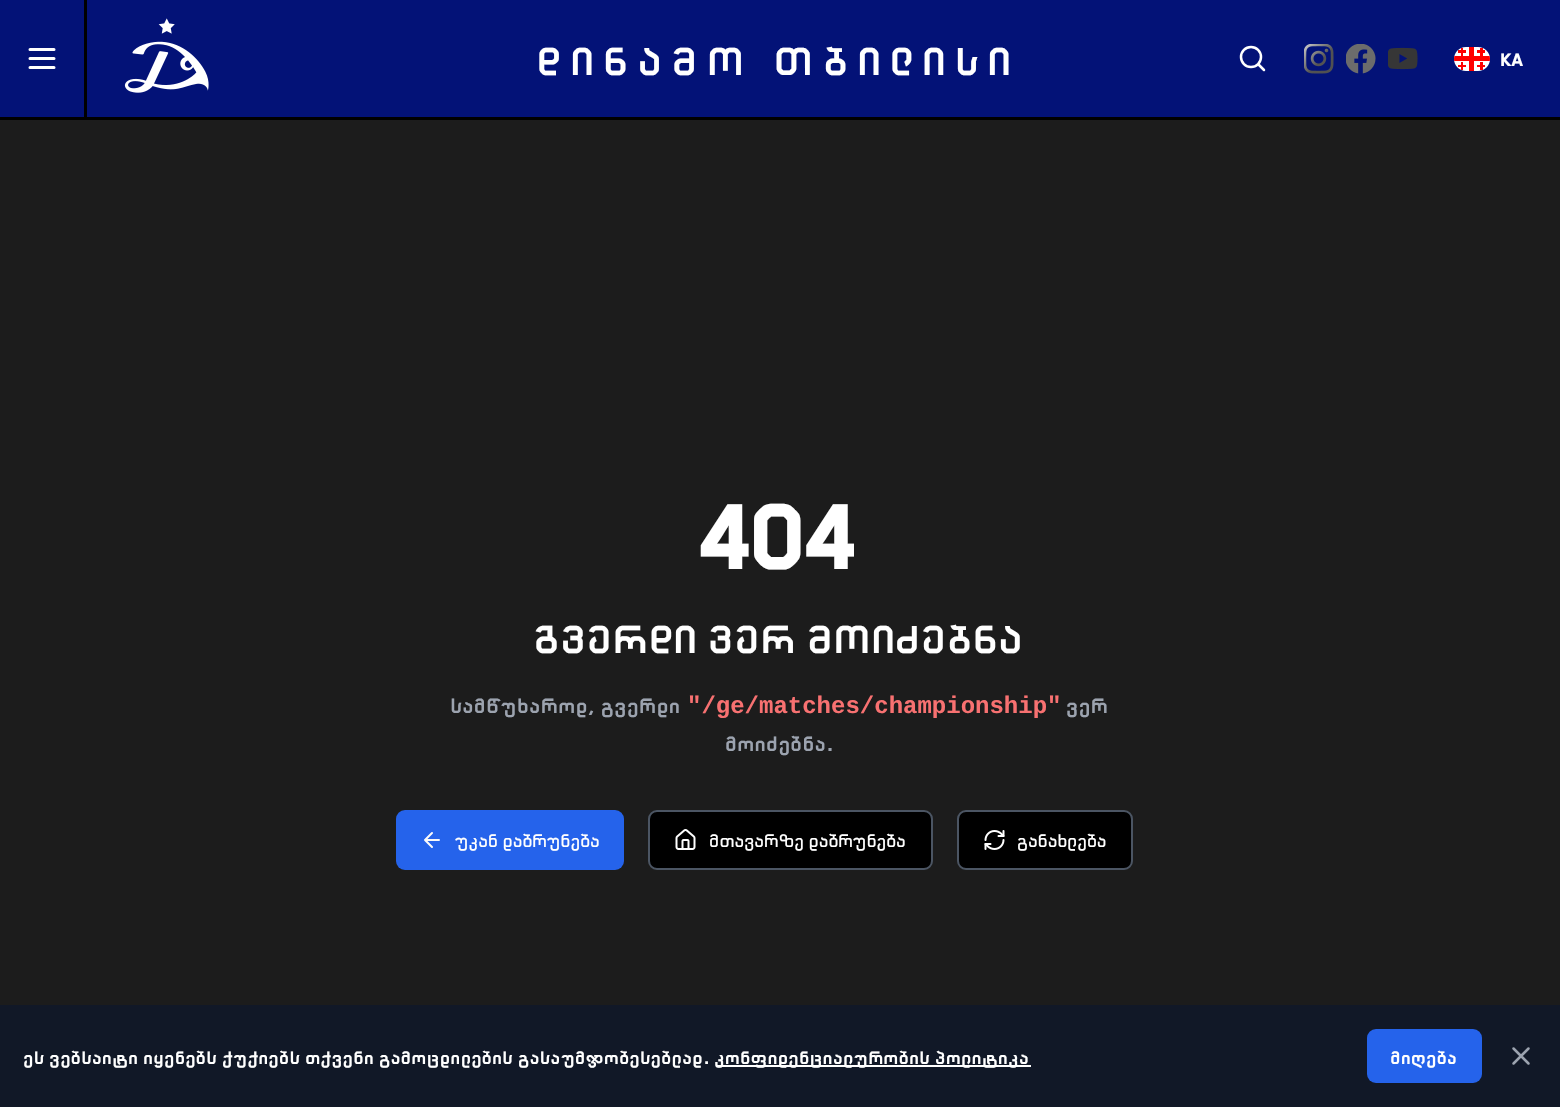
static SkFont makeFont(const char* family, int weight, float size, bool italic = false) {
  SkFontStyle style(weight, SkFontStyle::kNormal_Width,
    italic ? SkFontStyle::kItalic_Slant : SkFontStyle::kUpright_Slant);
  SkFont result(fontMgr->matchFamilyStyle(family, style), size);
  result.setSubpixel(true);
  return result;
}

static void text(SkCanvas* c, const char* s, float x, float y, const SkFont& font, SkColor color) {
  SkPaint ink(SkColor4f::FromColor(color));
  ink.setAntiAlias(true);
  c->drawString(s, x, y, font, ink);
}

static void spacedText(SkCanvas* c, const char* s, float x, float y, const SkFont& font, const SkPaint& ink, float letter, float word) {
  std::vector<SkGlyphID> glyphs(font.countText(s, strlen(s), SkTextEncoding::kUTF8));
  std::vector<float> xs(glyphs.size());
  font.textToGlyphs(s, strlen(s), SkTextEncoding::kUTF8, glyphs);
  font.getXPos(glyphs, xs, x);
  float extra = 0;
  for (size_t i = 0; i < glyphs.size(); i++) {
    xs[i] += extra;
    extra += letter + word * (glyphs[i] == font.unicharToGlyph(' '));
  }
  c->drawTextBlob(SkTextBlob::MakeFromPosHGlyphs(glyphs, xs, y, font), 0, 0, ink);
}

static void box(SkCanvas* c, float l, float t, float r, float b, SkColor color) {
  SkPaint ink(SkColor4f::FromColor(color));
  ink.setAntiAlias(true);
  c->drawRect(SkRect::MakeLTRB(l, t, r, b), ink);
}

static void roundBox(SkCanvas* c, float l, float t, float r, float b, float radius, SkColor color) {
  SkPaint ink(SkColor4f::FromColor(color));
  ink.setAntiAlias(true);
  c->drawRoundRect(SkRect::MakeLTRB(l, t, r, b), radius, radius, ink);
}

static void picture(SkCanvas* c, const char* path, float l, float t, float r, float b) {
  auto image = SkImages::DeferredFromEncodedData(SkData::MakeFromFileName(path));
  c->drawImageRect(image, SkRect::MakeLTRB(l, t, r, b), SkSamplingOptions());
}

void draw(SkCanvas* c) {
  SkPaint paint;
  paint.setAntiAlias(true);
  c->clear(0xff1c1c1c);
  box(c, 0, 0, 1560, 117, 0xff031277);
  box(c, 0, 117, 1560, 120, 0xff000000);
  box(c, 84, 0, 87, 119, 0xff000000);
  paint.setStyle(SkPaint::kStroke_Style);
  paint.setStrokeWidth(3);
  paint.setStrokeCap(SkPaint::kRound_Cap);
  paint.setStrokeJoin(SkPaint::kRound_Join);
  paint.setColor(0xffffffff);
  c->drawPath(SkPathBuilder().moveTo(30, 58.5f).lineTo(54, 58.5f).moveTo(30, 49.5f).lineTo(54, 49.5f).moveTo(30, 67.5f).lineTo(54, 67.5f).detach(), paint);
  picture(c, "img_01.png", 124, 18, 209, 93);
  SkFont face1 = makeFont("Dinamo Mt", 700, 45);
  paint.setStyle(SkPaint::kFill_Style);
  spacedText(c, "დინამო თბილისი", 538, 75, face1, paint, 9, 0);
  paint.setStyle(SkPaint::kStroke_Style);
  paint.setStrokeWidth(2.5f);
  paint.setStrokeCap(SkPaint::kButt_Cap);
  paint.setStrokeJoin(SkPaint::kMiter_Join);
  c->drawCircle(1251, 57, 10, paint);
  paint.setStrokeCap(SkPaint::kRound_Cap);
  paint.setStrokeJoin(SkPaint::kRound_Join);
  c->drawPath(SkPathBuilder().moveTo(1264, 70).lineTo(1258.5f, 64.5f).detach(), paint);
  picture(c, "img_02.png", 1304, 44, 1334, 74);
  picture(c, "img_03.png", 1346, 44, 1376, 74);
  picture(c, "img_04.png", 1388, 47, 1418, 70);
  picture(c, "img_05.png", 1454, 47, 1490, 71);
  SkFont face2 = makeFont("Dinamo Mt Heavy", 900, 21);
  text(c, "KA", 1501, 66, face2, 0xffffffff);
  SkFont face3 = makeFont("Dinamo Mt Heavy", 900, 108);
  paint.setStyle(SkPaint::kFill_Style);
  spacedText(c, "404", 700, 569, face3, paint, -3, 0);
  text(c, "გვერდი ვერ მოიძებნა", 535, 653, face1, 0xffffffff);
  SkFont face4 = makeFont("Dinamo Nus", 700, 24);
  text(c, "სამწუხაროდ, გვერდი", 451, 713, face4, 0xff9ca3af);
  SkFont face5 = makeFont("Liberation Mono", 700, 24);
  text(c, "\"/ge/matches/championship\"", 687, 713, face5, 0xfff87171);
  text(c, "ვერ", 1067, 713, face4, 0xff9ca3af);
  text(c, "მოიძებნა.", 726, 751, face4, 0xff9ca3af);
  roundBox(c, 396, 810, 624, 870, 9, 0xff2563eb);
  paint.setStyle(SkPaint::kStroke_Style);
  paint.setStrokeWidth(2);
  paint.setColor(0xfffafafa);
  c->drawPath(SkPathBuilder().moveTo(432, 847).lineTo(425, 840).lineTo(432, 833).moveTo(439, 840).lineTo(425, 840).detach(), paint);
  SkFont face6 = makeFont("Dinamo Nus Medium", 500, 21);
  text(c, "უკან დაბრუნება", 456, 847, face6, 0xffffffff);
  paint.setStyle(SkPaint::kFill_Style);
  paint.setColor(0xff000000);
  c->drawRoundRect(SkRect::MakeLTRB(649, 811, 932, 869), 8, 8, paint);
  paint.setStyle(SkPaint::kStroke_Style);
  paint.setStrokeCap(SkPaint::kButt_Cap);
  paint.setStrokeJoin(SkPaint::kMiter_Join);
  paint.setColor(0xff4b5563);
  c->drawRoundRect(SkRect::MakeLTRB(649, 811, 932, 869), 8, 8, paint);
  picture(c, "img_06.png", 675, 829, 696, 850);
  text(c, "მთავარზე დაბრუნება", 710, 847, face6, 0xffffffff);
  paint.setStyle(SkPaint::kFill_Style);
  paint.setColor(0xff000000);
  c->drawRoundRect(SkRect::MakeLTRB(958, 811, 1132, 869), 8, 8, paint);
  paint.setStyle(SkPaint::kStroke_Style);
  paint.setColor(0xff4b5563);
  c->drawRoundRect(SkRect::MakeLTRB(958, 811, 1132, 869), 8, 8, paint);
  picture(c, "img_07.png", 984, 830, 1005, 850);
  text(c, "განახლება", 1018, 847, face6, 0xffffffff);
  box(c, 0, 1005, 1560, 1107, 0xff111827);
  SkFont face7 = makeFont("Dinamo Nus", 700, 21);
  text(c, "ეს ვებსაიტი იყენებს ქუქიებს თქვენი გამოცდილების გასაუმჯობესებლად.", 24, 1064, face7, 0xffffffff);
  box(c, 716, 1065, 1031, 1067, 0xffffffff);
  text(c, "კონფიდენციალურობის პოლიტიკა", 715, 1064, face7, 0xffffffff);
  roundBox(c, 1367, 1029, 1482, 1083, 9, 0xff2563eb);
  text(c, "მიღება", 1391, 1064, face7, 0xffffffff);
  paint.setStrokeWidth(2.5f);
  paint.setStrokeCap(SkPaint::kRound_Cap);
  paint.setStrokeJoin(SkPaint::kRound_Join);
  paint.setColor(0xff9ca3af);
  c->drawPath(SkPathBuilder().moveTo(1528.5f, 1048.5f).lineTo(1513.5f, 1063.5f).moveTo(1513.5f, 1048.5f).lineTo(1528.5f, 1063.5f).detach(), paint);
}
